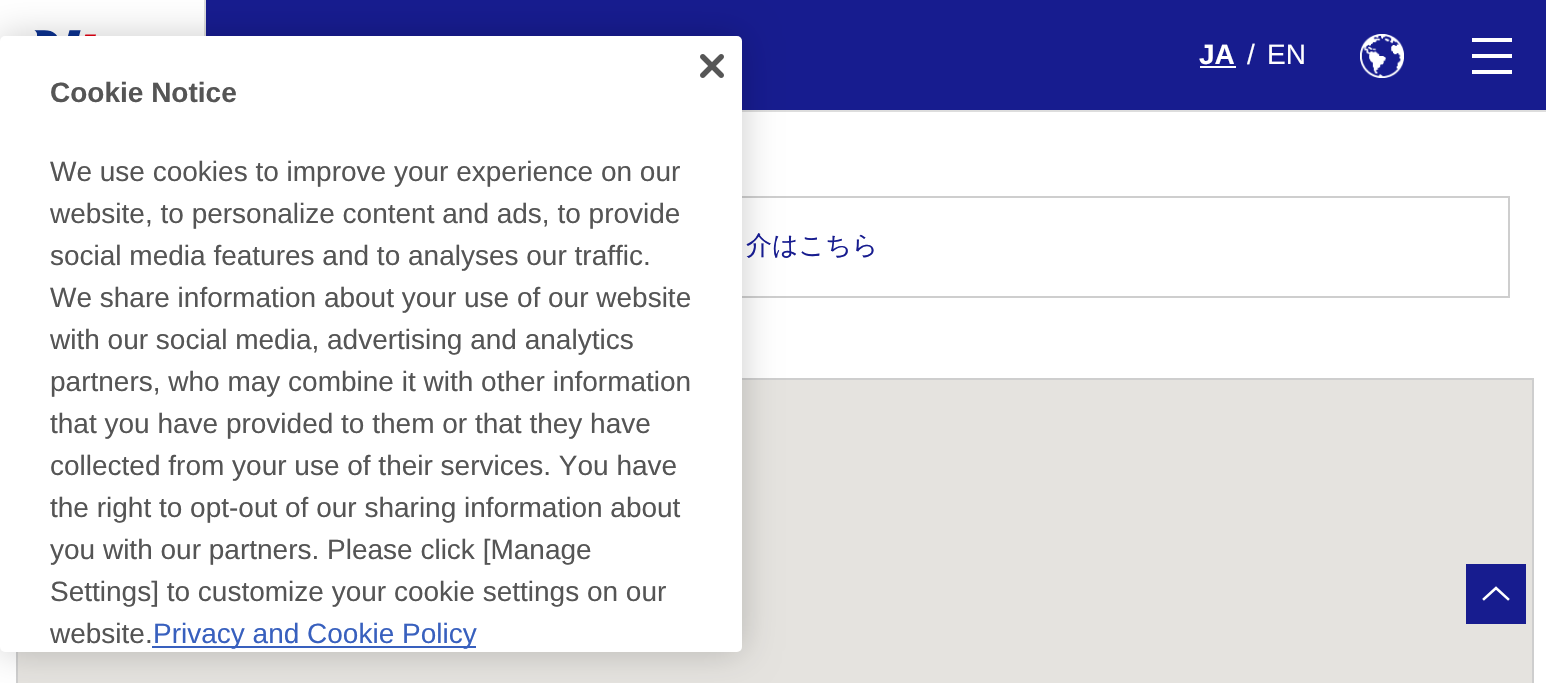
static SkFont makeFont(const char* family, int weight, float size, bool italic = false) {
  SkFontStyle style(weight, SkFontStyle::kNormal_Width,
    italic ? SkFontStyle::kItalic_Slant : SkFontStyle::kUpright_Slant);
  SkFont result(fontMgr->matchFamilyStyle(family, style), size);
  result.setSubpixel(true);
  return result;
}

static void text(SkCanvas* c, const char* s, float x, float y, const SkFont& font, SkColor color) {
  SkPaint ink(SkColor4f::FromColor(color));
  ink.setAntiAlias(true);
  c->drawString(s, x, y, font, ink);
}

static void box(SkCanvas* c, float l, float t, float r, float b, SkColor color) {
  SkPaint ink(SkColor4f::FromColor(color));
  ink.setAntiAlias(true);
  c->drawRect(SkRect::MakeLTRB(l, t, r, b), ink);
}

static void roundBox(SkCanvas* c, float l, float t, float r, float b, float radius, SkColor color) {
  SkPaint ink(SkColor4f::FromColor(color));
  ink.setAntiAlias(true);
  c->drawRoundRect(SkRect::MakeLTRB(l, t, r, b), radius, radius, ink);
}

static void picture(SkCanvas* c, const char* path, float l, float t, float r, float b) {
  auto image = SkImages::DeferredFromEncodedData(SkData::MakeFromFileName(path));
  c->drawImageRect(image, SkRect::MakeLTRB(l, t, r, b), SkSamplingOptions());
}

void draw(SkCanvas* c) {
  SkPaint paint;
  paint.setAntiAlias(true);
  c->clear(0xffffffff);
  box(c, 742, 110, 1546, 112, 0xffdddddd);
  box(c, 204, 0, 206, 36, 0xffdddddd);
  picture(c, "img_01.png", 34, 30, 96, 36);
  box(c, 206, 0, 1546, 110, 0xff171c8f);
  SkFont face1 = makeFont("Liberation Sans", 700, 28);
  text(c, "JA", 1199, 64, face1, 0xffffffff);
  box(c, 1200, 66, 1236, 68, 0xffffffff);
  SkFont face2 = makeFont("Liberation Sans", 400, 28);
  text(c, "/", 1247, 64, face2, 0xffffffff);
  text(c, "EN", 1267, 64, face2, 0xffffffff);
  picture(c, "img_02.png", 1360, 34, 1404, 78);
  box(c, 1472, 38, 1512, 42, 0xffffffff);
  box(c, 1472, 54, 1512, 58, 0xffffffff);
  box(c, 1472, 70, 1512, 74, 0xffffffff);
  paint.setStyle(SkPaint::kStroke_Style);
  paint.setStrokeWidth(2);
  paint.setColor(0xffcecece);
  c->drawRect(SkRect::MakeLTRB(37, 197, 1509, 297), paint);
  c->drawRect(SkRect::MakeLTRB(17, 379, 1533, 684), paint);
  box(c, 18, 380, 1532, 683, 0xffe5e3df);
  paint.setStyle(SkPaint::kFill_Style);
  paint.setColor(0x33000000);
  paint.setMaskFilter(SkMaskFilter::MakeBlur(kNormal_SkBlurStyle, 18));
  c->drawRoundRect(SkRect::MakeLTRB(0, 36, 742, 652), 5, 5, paint);
  paint.setMaskFilter(nullptr);
  roundBox(c, 0, 36, 742, 652, 5, 0xffffffff);
  picture(c, "img_03.png", 700, 54, 724, 78);
  text(c, "Cookie Notice", 50, 102, face1, 0xff555555);
  text(c, "We use cookies to improve your experience on our", 50, 181, face2, 0xff555555);
  text(c, "website, to personalize content and ads, to provide", 50, 223, face2, 0xff555555);
  text(c, "social media features and to analyses our traffic.", 50, 265, face2, 0xff555555);
  text(c, "We share information about your use of our website", 50, 307, face2, 0xff555555);
  text(c, "with our social media, advertising and analytics", 50, 349, face2, 0xff555555);
  text(c, "partners, who may combine it with other information", 50, 391, face2, 0xff555555);
  text(c, "that you have provided to them or that they have", 50, 433, face2, 0xff555555);
  text(c, "collected from your use of their services. You have", 50, 475, face2, 0xff555555);
  text(c, "the right to opt-out of our sharing information about", 50, 517, face2, 0xff555555);
  text(c, "you with our partners. Please click [Manage", 50, 559, face2, 0xff555555);
  text(c, "Settings] to customize your cookie settings on our", 50, 601, face2, 0xff555555);
  text(c, "website.", 50, 643, face2, 0xff555555);
  box(c, 152, 646, 476, 648, 0xff3860be);
  text(c, "Privacy and Cookie Policy", 153, 643, face2, 0xff3860be);
  SkFont face3 = makeFont("WenQuanYi Zen Hei", 500, 26);
  text(c, "介はこちら", 746, 254, face3, 0xff171c8f);
  box(c, 1466, 564, 1526, 624, 0xff171c8f);
  paint.setStyle(SkPaint::kStroke_Style);
  paint.setStrokeWidth(2.6f);
  paint.setStrokeCap(SkPaint::kSquare_Cap);
  paint.setColor(0xffffffff);
  c->drawPath(SkPathBuilder().moveTo(1484, 599).lineTo(1496, 588).lineTo(1508, 599).detach(), paint);
}
